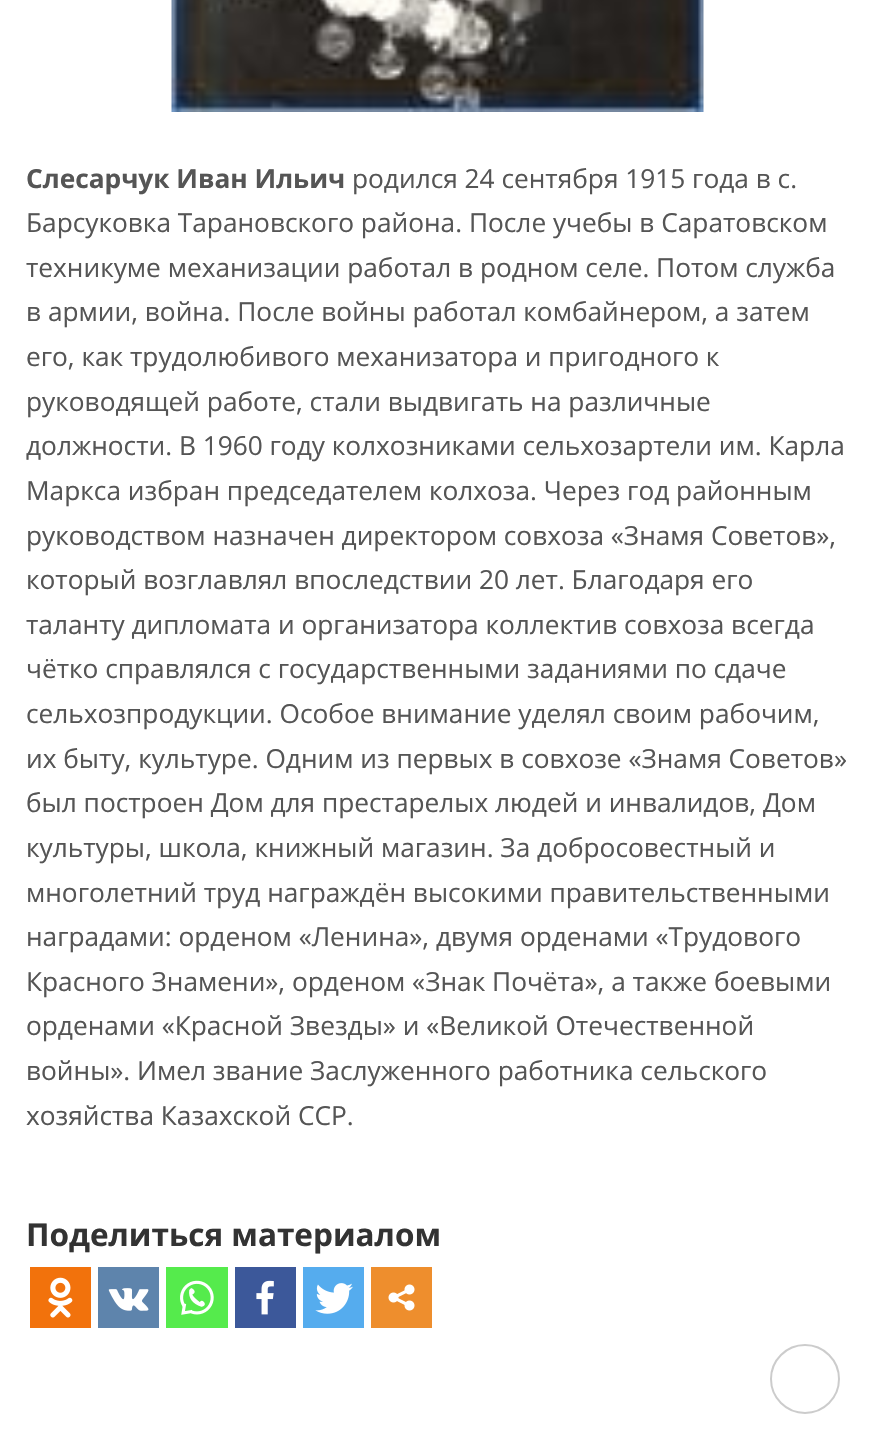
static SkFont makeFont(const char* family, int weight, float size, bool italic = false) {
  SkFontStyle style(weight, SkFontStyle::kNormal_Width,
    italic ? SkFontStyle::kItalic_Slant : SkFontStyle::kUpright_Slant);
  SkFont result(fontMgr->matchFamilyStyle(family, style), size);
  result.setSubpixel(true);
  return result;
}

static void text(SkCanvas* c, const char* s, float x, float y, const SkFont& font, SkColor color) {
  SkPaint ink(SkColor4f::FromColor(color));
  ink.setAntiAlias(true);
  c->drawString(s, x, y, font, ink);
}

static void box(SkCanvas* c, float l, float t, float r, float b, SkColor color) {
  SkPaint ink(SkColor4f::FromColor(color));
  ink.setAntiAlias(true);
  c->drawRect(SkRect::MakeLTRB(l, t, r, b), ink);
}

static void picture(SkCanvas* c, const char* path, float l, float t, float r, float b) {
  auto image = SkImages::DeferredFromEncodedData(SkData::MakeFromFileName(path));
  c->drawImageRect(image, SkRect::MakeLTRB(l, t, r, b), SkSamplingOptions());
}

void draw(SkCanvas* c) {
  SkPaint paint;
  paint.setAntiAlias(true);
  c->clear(0xffffffff);
  picture(c, "img_01.png", 171, 0, 704, 112);
  SkFont face1 = makeFont("Open Sans", 700, 26.25f);
  text(c, "Слесарчук Иван Ильич", 26, 188, face1, 0xff555555);
  SkFont face2 = makeFont("Open Sans", 400, 26.25f);
  text(c, "родился 24 сентября 1915 года в с.", 352, 188, face2, 0xff555555);
  text(c, "Барсуковка Тарановского района. После учебы в Саратовском", 26, 232, face2, 0xff555555);
  text(c, "техникуме механизации работал в родном селе. Потом служба", 26, 277, face2, 0xff555555);
  text(c, "в армии, война. После войны работал комбайнером, а затем", 26, 321, face2, 0xff555555);
  text(c, "его, как трудолюбивого механизатора и пригодного к", 26, 366, face2, 0xff555555);
  text(c, "руководящей работе, стали выдвигать на различные", 26, 411, face2, 0xff555555);
  text(c, "должности. В 1960 году колхозниками сельхозартели им. Карла", 26, 455, face2, 0xff555555);
  text(c, "Маркса избран председателем колхоза. Через год районным", 26, 500, face2, 0xff555555);
  text(c, "руководством назначен директором совхоза «Знамя Советов»,", 26, 545, face2, 0xff555555);
  text(c, "который возглавлял впоследствии 20 лет. Благодаря его", 26, 589, face2, 0xff555555);
  text(c, "таланту дипломата и организатора коллектив совхоза всегда", 26, 634, face2, 0xff555555);
  text(c, "чётко справлялся с государственными заданиями по сдаче", 26, 678, face2, 0xff555555);
  text(c, "сельхозпродукции. Особое внимание уделял своим рабочим,", 26, 723, face2, 0xff555555);
  text(c, "их быту, культуре. Одним из первых в совхозе «Знамя Советов»", 26, 768, face2, 0xff555555);
  text(c, "был построен Дом для престарелых людей и инвалидов, Дом", 26, 812, face2, 0xff555555);
  text(c, "культуры, школа, книжный магазин. За добросовестный и", 26, 857, face2, 0xff555555);
  text(c, "многолетний труд награждён высокими правительственными", 26, 902, face2, 0xff555555);
  text(c, "наградами: орденом «Ленина», двумя орденами «Трудового", 26, 946, face2, 0xff555555);
  text(c, "Красного Знамени», орденом «Знак Почёта», а также боевыми", 26, 991, face2, 0xff555555);
  text(c, "орденами «Красной Звезды» и «Великой Отечественной", 26, 1035, face2, 0xff555555);
  text(c, "войны». Имел звание Заслуженного работника сельского", 26, 1080, face2, 0xff555555);
  text(c, "хозяйства Казахской ССР.", 26, 1125, face2, 0xff555555);
  SkFont face3 = makeFont("Open Sans", 700, 31.5f);
  text(c, "Поделиться материалом", 26, 1246, face3, 0xff333333);
  box(c, 30, 1267, 91, 1328, 0xfff2720c);
  picture(c, "img_02.png", 48, 1277, 73, 1318);
  box(c, 98, 1267, 159, 1328, 0xff5e84ac);
  picture(c, "img_03.png", 108, 1288, 149, 1311);
  box(c, 166, 1267, 228, 1328, 0xff55eb4c);
  picture(c, "img_04.png", 180, 1280, 214, 1315);
  box(c, 235, 1267, 296, 1328, 0xff3c589a);
  picture(c, "img_05.png", 256, 1280, 274, 1315);
  box(c, 303, 1267, 364, 1328, 0xff55acee);
  picture(c, "img_06.png", 315, 1283, 353, 1314);
  box(c, 371, 1267, 432, 1328, 0xffee8e2d);
  picture(c, "img_07.png", 388, 1284, 415, 1311);
  paint.setStyle(SkPaint::kStroke_Style);
  paint.setStrokeWidth(2);
  paint.setColor(0xffcccccc);
  c->drawCircle(805, 1379, 34, paint);
}
